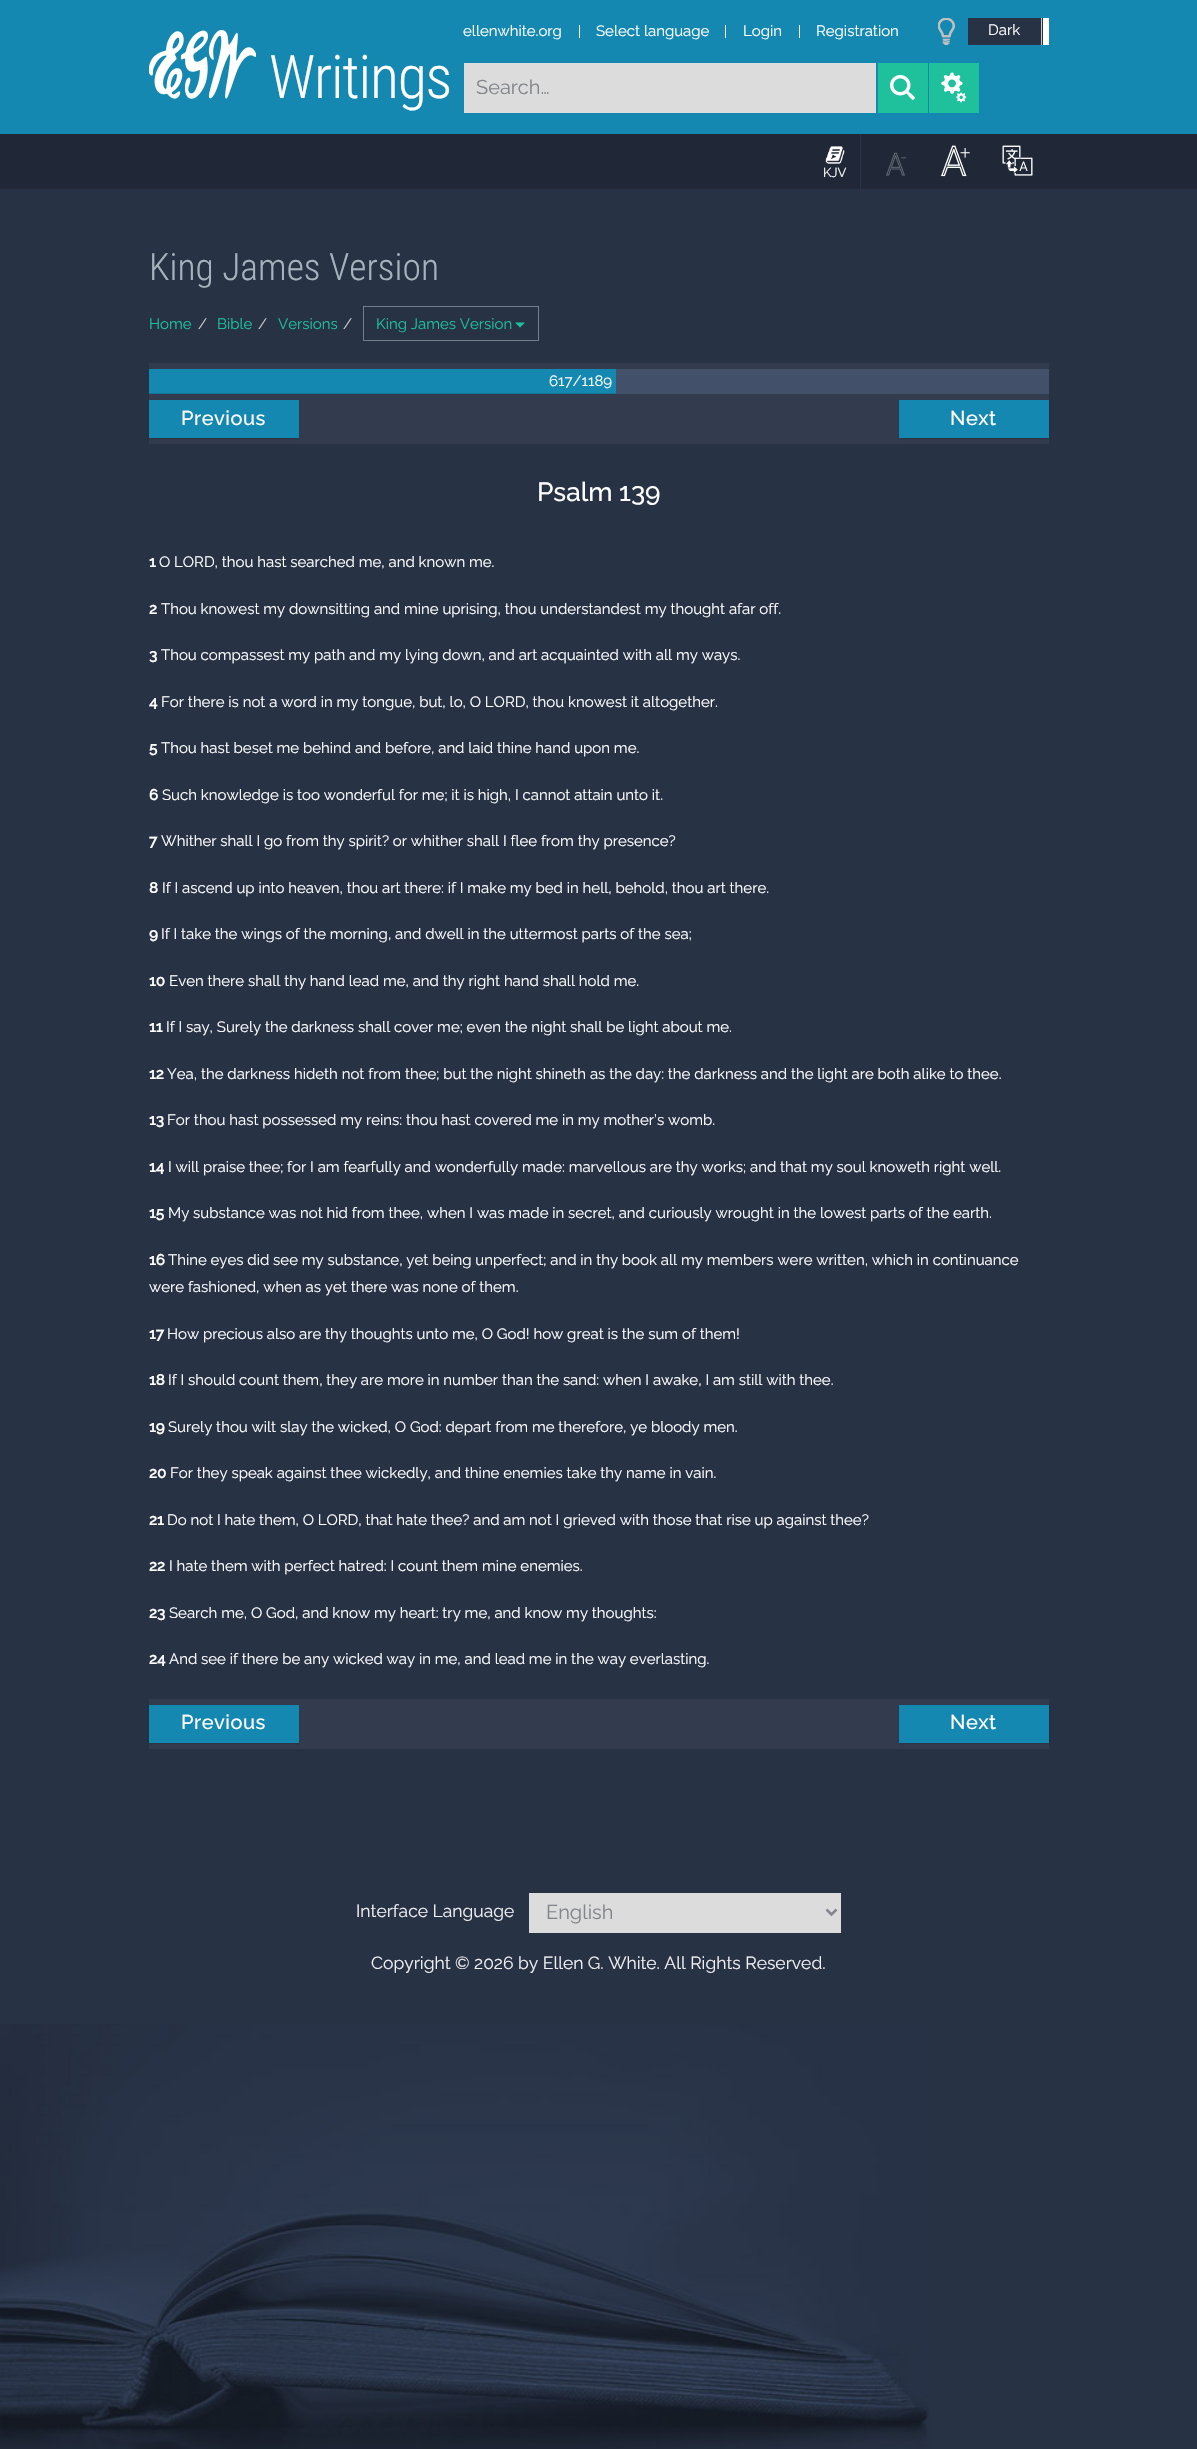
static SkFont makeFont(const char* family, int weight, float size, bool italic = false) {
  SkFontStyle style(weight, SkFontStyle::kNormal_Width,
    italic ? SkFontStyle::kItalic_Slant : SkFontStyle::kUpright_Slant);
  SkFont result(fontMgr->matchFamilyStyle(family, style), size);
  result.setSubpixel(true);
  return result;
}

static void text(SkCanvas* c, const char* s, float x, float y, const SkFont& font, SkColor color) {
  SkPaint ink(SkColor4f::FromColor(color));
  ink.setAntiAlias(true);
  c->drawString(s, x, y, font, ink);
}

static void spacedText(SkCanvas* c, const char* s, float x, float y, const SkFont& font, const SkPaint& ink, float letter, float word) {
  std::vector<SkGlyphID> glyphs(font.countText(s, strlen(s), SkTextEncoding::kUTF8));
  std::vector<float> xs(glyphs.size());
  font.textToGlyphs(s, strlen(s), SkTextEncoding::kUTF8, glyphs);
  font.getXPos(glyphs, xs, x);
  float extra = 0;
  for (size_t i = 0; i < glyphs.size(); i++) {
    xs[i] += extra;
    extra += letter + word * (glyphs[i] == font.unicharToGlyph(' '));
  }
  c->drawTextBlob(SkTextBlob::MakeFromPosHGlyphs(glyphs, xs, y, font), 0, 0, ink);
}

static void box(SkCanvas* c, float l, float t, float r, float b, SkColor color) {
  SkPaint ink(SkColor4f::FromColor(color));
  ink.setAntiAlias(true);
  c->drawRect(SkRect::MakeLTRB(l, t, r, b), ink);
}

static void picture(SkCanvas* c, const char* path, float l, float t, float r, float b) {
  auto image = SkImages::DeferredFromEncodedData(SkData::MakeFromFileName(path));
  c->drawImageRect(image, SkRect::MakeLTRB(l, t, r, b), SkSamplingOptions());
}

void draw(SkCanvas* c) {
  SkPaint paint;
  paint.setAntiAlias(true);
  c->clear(0xff273245);
  picture(c, "img_01.png", 0, 2024, 929, 2449);
  box(c, 0, 0, 1197, 134, 0xff1588b1);
  picture(c, "img_02.png", 149, 30, 256, 99);
  SkFont face1 = makeFont("Roboto Condensed", 300, 60);
  paint.setColor(0xffffffff);
  spacedText(c, "Writings", 269, 98, face1, paint, -1.25f, 0);
  SkFont face2 = makeFont("Raleway", 400, 15);
  text(c, "ellenwhite.org", 463, 36, face2, 0xffffffff);
  box(c, 579, 25, 580, 38, 0xffffffff);
  text(c, "Select language", 596, 36, face2, 0xffffffff);
  box(c, 725, 25, 726, 38, 0xffffffff);
  text(c, "Login", 743, 36, face2, 0xffffffff);
  box(c, 799, 25, 800, 38, 0xffffffff);
  text(c, "Registration", 816, 36, face2, 0xffffffff);
  picture(c, "img_03.png", 938, 18, 955, 45);
  box(c, 968, 18, 1043, 45, 0xff273245);
  text(c, "Dark", 988, 35, face2, 0xffffffff);
  box(c, 1043, 18, 1049, 45, 0xffffffff);
  box(c, 1041, 18, 1042, 45, 0xffc8c8c8);
  box(c, 464, 63, 876, 113, 0xffdcdcdc);
  SkFont face3 = makeFont("Raleway", 400, 20);
  text(c, "Search…", 476, 94, face3, 0xff83858c);
  box(c, 878, 63, 928, 113, 0xff1ec19c);
  picture(c, "img_04.png", 890, 75, 915, 100);
  box(c, 929, 63, 979, 113, 0xff1ec19c);
  picture(c, "img_05.png", 941, 72, 967, 103);
  box(c, 0, 134, 1197, 189, 0xff202837);
  picture(c, "img_06.png", 825, 146, 845, 164);
  SkFont face4 = makeFont("Raleway", 400, 13);
  text(c, "KJV", 823, 177, face4, 0xffffffff);
  box(c, 860, 134, 861, 189, 0xff24344b);
  picture(c, "img_07.png", 886, 152, 907, 176);
  picture(c, "img_08.png", 941, 145, 970, 177);
  picture(c, "img_09.png", 1002, 145, 1033, 176);
  SkFont face5 = makeFont("Roboto Condensed", 300, 37.5f);
  text(c, "King James Version", 149, 280, face5, 0xffa4b3bc);
  text(c, "Home", 149, 329, face2, 0xff1ec19c);
  text(c, "/", 198, 329, face2, 0xffcccccc);
  text(c, "Bible", 217, 329, face2, 0xff1ec19c);
  text(c, "/", 258, 329, face2, 0xffcccccc);
  text(c, "Versions", 278, 329, face2, 0xff1ec19c);
  text(c, "/", 343, 329, face2, 0xffcccccc);
  paint.setStyle(SkPaint::kStroke_Style);
  paint.setStrokeWidth(1);
  paint.setColor(0xff707f8a);
  c->drawRect(SkRect::MakeLTRB(363.5f, 306.5f, 538.5f, 340.5f), paint);
  text(c, "King James Version", 376, 329, face2, 0xff1ec19c);
  paint.setStyle(SkPaint::kFill_Style);
  paint.setColor(0xff1ec19c);
  c->drawPath(SkPathBuilder().moveTo(515, 322.5f).lineTo(525, 322.5f).lineTo(520, 327.5f).close().detach(), paint);
  box(c, 149, 363, 1049, 444, 0xff323c4e);
  box(c, 616, 369, 1049, 394, 0xff435069);
  box(c, 149, 369, 616, 393, 0xff1588b1);
  box(c, 149, 393, 616, 394, 0xff127496);
  text(c, "617/1189", 549, 386, face2, 0xffffffff);
  paint.setColor(0x26000000);
  paint.setMaskFilter(SkMaskFilter::MakeBlur(kNormal_SkBlurStyle, 1));
  c->drawRect(SkRect::MakeLTRB(149, 401, 299, 439), paint);
  paint.setMaskFilter(nullptr);
  box(c, 149, 400, 299, 438, 0xff1588b1);
  SkFont face6 = makeFont("Raleway", 500, 20);
  paint.setColor(0xffffffff);
  spacedText(c, "Previous", 181, 425, face6, paint, 0.5f, 0);
  paint.setColor(0x26000000);
  paint.setMaskFilter(SkMaskFilter::MakeBlur(kNormal_SkBlurStyle, 1));
  c->drawRect(SkRect::MakeLTRB(899, 401, 1049, 439), paint);
  paint.setMaskFilter(nullptr);
  box(c, 899, 400, 1049, 438, 0xff1588b1);
  paint.setColor(0xffffffff);
  spacedText(c, "Next", 950, 425, face6, paint, 0.5f, 0);
  SkFont face7 = makeFont("Raleway", 500, 26.25f);
  text(c, "Psalm 139", 537, 501, face7, 0xffffffff);
  SkFont face8 = makeFont("Raleway", 700, 15);
  text(c, "1", 149, 567, face8, 0xffffffff);
  text(c, "O LORD, thou hast searched me, and known me.", 159, 567, face2, 0xffffffff);
  text(c, "2", 149, 614, face8, 0xffffffff);
  text(c, "Thou knowest my downsitting and mine uprising, thou understandest my thought afar off.", 161, 614, face2, 0xffffffff);
  text(c, "3", 149, 660, face8, 0xffffffff);
  text(c, "Thou compassest my path and my lying down, and art acquainted with all my ways.", 161, 660, face2, 0xffffffff);
  text(c, "4", 149, 707, face8, 0xffffffff);
  text(c, "For there is not a word in my tongue, but, lo, O LORD, thou knowest it altogether.", 161, 707, face2, 0xffffffff);
  text(c, "5", 149, 753, face8, 0xffffffff);
  text(c, "Thou hast beset me behind and before, and laid thine hand upon me.", 161, 753, face2, 0xffffffff);
  text(c, "6", 149, 800, face8, 0xffffffff);
  text(c, "Such knowledge is too wonderful for me; it is high, I cannot attain unto it.", 162, 800, face2, 0xffffffff);
  text(c, "7", 149, 846, face8, 0xffffffff);
  text(c, "Whither shall I go from thy spirit? or whither shall I flee from thy presence?", 161, 846, face2, 0xffffffff);
  text(c, "8", 149, 893, face8, 0xffffffff);
  text(c, "If I ascend up into heaven, thou art there: if I make my bed in hell, behold, thou art there.", 162, 893, face2, 0xffffffff);
  text(c, "9", 149, 939, face8, 0xffffffff);
  text(c, "If I take the wings of the morning, and dwell in the uttermost parts of the sea;", 161, 939, face2, 0xffffffff);
  text(c, "10", 149, 986, face8, 0xffffffff);
  text(c, "Even there shall thy hand lead me, and thy right hand shall hold me.", 169, 986, face2, 0xffffffff);
  text(c, "11", 149, 1032, face8, 0xffffffff);
  text(c, "If I say, Surely the darkness shall cover me; even the night shall be light about me.", 166, 1032, face2, 0xffffffff);
  text(c, "12", 149, 1079, face8, 0xffffffff);
  text(c, "Yea, the darkness hideth not from thee; but the night shineth as the day: the darkness and the light are both alike to thee.", 167, 1079, face2, 0xffffffff);
  text(c, "13", 149, 1125, face8, 0xffffffff);
  text(c, "For thou hast possessed my reins: thou hast covered me in my mother’s womb.", 167, 1125, face2, 0xffffffff);
  text(c, "14", 149, 1172, face8, 0xffffffff);
  text(c, "I will praise thee; for I am fearfully and wonderfully made: marvellous are thy works; and that my soul knoweth right well.", 168, 1172, face2, 0xffffffff);
  text(c, "15", 149, 1218, face8, 0xffffffff);
  text(c, "My substance was not hid from thee, when I was made in secret, and curiously wrought in the lowest parts of the earth.", 168, 1218, face2, 0xffffffff);
  text(c, "16", 149, 1265, face8, 0xffffffff);
  text(c, "Thine eyes did see my substance, yet being unperfect; and in thy book all my members were written, which in continuance", 168, 1265, face2, 0xffffffff);
  text(c, "were fashioned, when as yet there was none of them.", 149, 1292, face2, 0xffffffff);
  text(c, "17", 149, 1339, face8, 0xffffffff);
  text(c, "How precious also are thy thoughts unto me, O God! how great is the sum of them!", 167, 1339, face2, 0xffffffff);
  text(c, "18", 149, 1385, face8, 0xffffffff);
  text(c, "If I should count them, they are more in number than the sand: when I awake, I am still with thee.", 168, 1385, face2, 0xffffffff);
  text(c, "19", 149, 1432, face8, 0xffffffff);
  text(c, "Surely thou wilt slay the wicked, O God: depart from me therefore, ye bloody men.", 168, 1432, face2, 0xffffffff);
  text(c, "20", 149, 1478, face8, 0xffffffff);
  text(c, "For they speak against thee wickedly, and thine enemies take thy name in vain.", 170, 1478, face2, 0xffffffff);
  text(c, "21", 149, 1525, face8, 0xffffffff);
  text(c, "Do not I hate them, O LORD, that hate thee? and am not I grieved with those that rise up against thee?", 167, 1525, face2, 0xffffffff);
  text(c, "22", 149, 1571, face8, 0xffffffff);
  text(c, "I hate them with perfect hatred: I count them mine enemies.", 169, 1571, face2, 0xffffffff);
  text(c, "23", 149, 1618, face8, 0xffffffff);
  text(c, "Search me, O God, and know my heart: try me, and know my thoughts:", 169, 1618, face2, 0xffffffff);
  text(c, "24", 149, 1664, face8, 0xffffffff);
  text(c, "And see if there be any wicked way in me, and lead me in the way everlasting.", 169, 1664, face2, 0xffffffff);
  box(c, 149, 1699, 1049, 1749, 0xff323c4e);
  paint.setColor(0x26000000);
  paint.setMaskFilter(SkMaskFilter::MakeBlur(kNormal_SkBlurStyle, 1));
  c->drawRect(SkRect::MakeLTRB(149, 1706, 299, 1744), paint);
  paint.setMaskFilter(nullptr);
  box(c, 149, 1705, 299, 1743, 0xff1588b1);
  paint.setColor(0xffffffff);
  spacedText(c, "Previous", 181, 1729, face6, paint, 0.5f, 0);
  paint.setColor(0x26000000);
  paint.setMaskFilter(SkMaskFilter::MakeBlur(kNormal_SkBlurStyle, 1));
  c->drawRect(SkRect::MakeLTRB(899, 1706, 1049, 1744), paint);
  paint.setMaskFilter(nullptr);
  box(c, 899, 1705, 1049, 1743, 0xff1588b1);
  paint.setColor(0xffffffff);
  spacedText(c, "Next", 950, 1729, face6, paint, 0.5f, 0);
  SkFont face9 = makeFont("Raleway", 400, 17.5f);
  text(c, "Interface Language", 356, 1917, face9, 0xfff0eff2);
  box(c, 529, 1893, 841, 1933, 0xffdcdcdc);
  paint.setStyle(SkPaint::kStroke_Style);
  paint.setStrokeWidth(2.5f);
  paint.setColor(0xff83858c);
  c->drawPath(SkPathBuilder().moveTo(826.5f, 1909.5f).lineTo(831.5f, 1914.5f).lineTo(836.5f, 1909.5f).detach(), paint);
  text(c, "English", 546, 1919, face3, 0xff83858c);
  text(c, "Copyright © 2026 by Ellen G. White. All Rights Reserved.", 371, 1969, face9, 0xfff0eff2);
}
